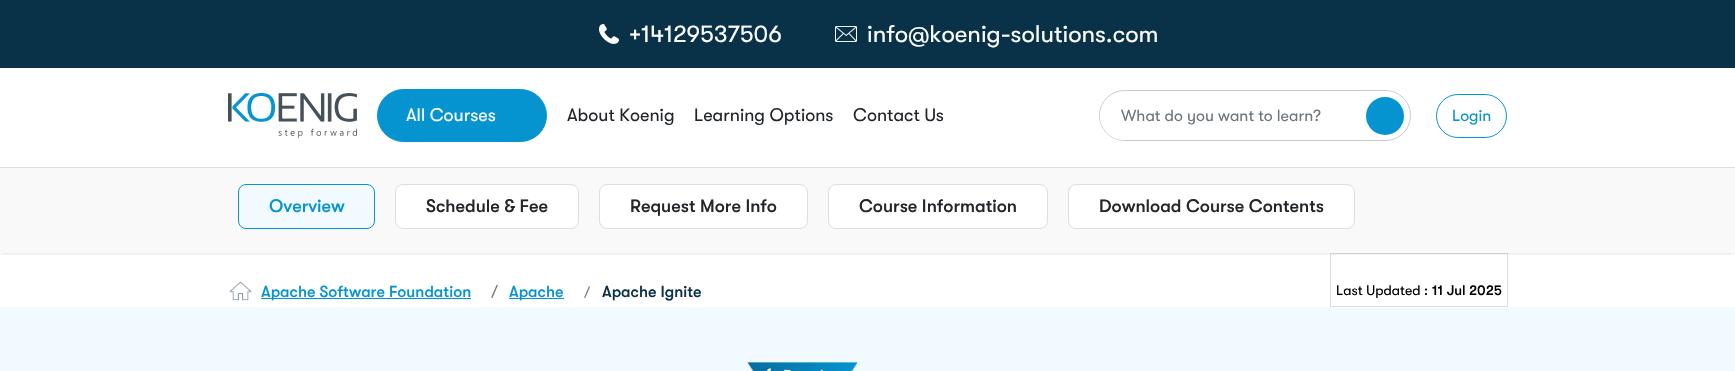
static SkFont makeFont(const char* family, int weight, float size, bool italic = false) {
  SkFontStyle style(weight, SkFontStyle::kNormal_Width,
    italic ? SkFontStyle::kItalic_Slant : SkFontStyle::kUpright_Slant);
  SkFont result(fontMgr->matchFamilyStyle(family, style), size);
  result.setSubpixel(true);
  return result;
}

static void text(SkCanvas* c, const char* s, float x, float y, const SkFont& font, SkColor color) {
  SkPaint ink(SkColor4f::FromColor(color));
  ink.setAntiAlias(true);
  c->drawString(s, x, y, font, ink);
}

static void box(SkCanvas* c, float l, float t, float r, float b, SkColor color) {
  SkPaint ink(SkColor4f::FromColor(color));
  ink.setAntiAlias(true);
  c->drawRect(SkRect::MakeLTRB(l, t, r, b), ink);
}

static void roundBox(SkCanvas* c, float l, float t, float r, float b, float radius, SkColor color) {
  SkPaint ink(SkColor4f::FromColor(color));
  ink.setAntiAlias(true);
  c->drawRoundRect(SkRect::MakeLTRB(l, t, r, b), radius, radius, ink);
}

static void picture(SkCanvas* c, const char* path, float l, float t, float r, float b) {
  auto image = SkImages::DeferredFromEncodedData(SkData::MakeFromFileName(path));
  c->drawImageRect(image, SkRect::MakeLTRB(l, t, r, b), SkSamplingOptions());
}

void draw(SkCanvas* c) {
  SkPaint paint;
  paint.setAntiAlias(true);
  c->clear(0xffffffff);
  box(c, 0, 0, 1735, 68, 0xff093148);
  picture(c, "img_01.png", 599, 24, 619, 44);
  SkFont face1 = makeFont("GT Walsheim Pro", 400, 24);
  text(c, "+14129537506", 629, 42, face1, 0xffffffff);
  picture(c, "img_02.png", 835, 26, 857, 42);
  text(c, "info@koenig-solutions.com", 867, 42, face1, 0xffffffff);
  box(c, 0, 167, 1735, 168, 0xffdedede);
  picture(c, "img_03.png", 228, 93, 357, 138);
  paint.setColor(0xff0694d1);
  c->drawRoundRect(SkRect::MakeLTRB(377.5f, 89.5f, 546.5f, 141.5f), 26, 26, paint);
  paint.setStyle(SkPaint::kStroke_Style);
  paint.setStrokeWidth(1);
  c->drawRoundRect(SkRect::MakeLTRB(377.5f, 89.5f, 546.5f, 141.5f), 26, 26, paint);
  SkFont face2 = makeFont("GT Walsheim Pro", 400, 18);
  text(c, "All Courses", 406, 121, face2, 0xffffffff);
  text(c, "About Koenig", 567, 121, face2, 0xff22262a);
  text(c, "Learning Options", 694, 121, face2, 0xff22262a);
  text(c, "Contact Us", 853, 121, face2, 0xff22262a);
  paint.setColor(0xffcbcbcb);
  c->drawRoundRect(SkRect::MakeLTRB(1099.5f, 90.5f, 1410.5f, 140.5f), 25, 25, paint);
  roundBox(c, 1100, 92, 1360, 140, 24, 0xffffffff);
  SkFont face3 = makeFont("GT Walsheim Pro", 400, 16);
  text(c, "What do you want to learn?", 1121, 121, face3, 0xff6c757d);
  paint.setStyle(SkPaint::kFill_Style);
  paint.setColor(0xff0694d1);
  c->drawCircle(1385, 116, 19, paint);
  paint.setStyle(SkPaint::kStroke_Style);
  c->drawRoundRect(SkRect::MakeLTRB(1436.5f, 94.5f, 1506.5f, 137.5f), 21.5f, 21.5f, paint);
  text(c, "Login", 1452, 121, face3, 0xff0694d1);
  box(c, 0, 168, 1735, 253, 0xfff9f9f9);
  paint.setColor(0xffdedede);
  c->drawRect(SkRect::MakeLTRB(1330.5f, 253.5f, 1507.5f, 306.5f), paint);
  c->save();
  c->clipRect(SkRect::MakeLTRB(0, 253, 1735, 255));
  paint.setStyle(SkPaint::kFill_Style);
  paint.setColor(0x1a000000);
  paint.setMaskFilter(SkMaskFilter::MakeBlur(kNormal_SkBlurStyle, 1.5f));
  c->drawRect(SkRect::MakeLTRB(1, 171, 1734, 254), paint);
  paint.setMaskFilter(nullptr);
  c->restore();
  paint.setColor(0xfff0faff);
  c->drawRoundRect(SkRect::MakeLTRB(238.5f, 184.5f, 374.5f, 228.5f), 7.5f, 7.5f, paint);
  paint.setStyle(SkPaint::kStroke_Style);
  paint.setColor(0xff0694d1);
  c->drawRoundRect(SkRect::MakeLTRB(238.5f, 184.5f, 374.5f, 228.5f), 7.5f, 7.5f, paint);
  SkFont face4 = makeFont("GT Walsheim Pro", 500, 18);
  text(c, "Overview", 269, 212, face4, 0xff0694d1);
  paint.setStyle(SkPaint::kFill_Style);
  paint.setColor(0xffffffff);
  c->drawRoundRect(SkRect::MakeLTRB(395.5f, 184.5f, 578.5f, 228.5f), 7.5f, 7.5f, paint);
  paint.setStyle(SkPaint::kStroke_Style);
  paint.setColor(0xffdedede);
  c->drawRoundRect(SkRect::MakeLTRB(395.5f, 184.5f, 578.5f, 228.5f), 7.5f, 7.5f, paint);
  text(c, "Schedule & Fee", 426, 212, face4, 0xff22262a);
  paint.setStyle(SkPaint::kFill_Style);
  paint.setColor(0xffffffff);
  c->drawRoundRect(SkRect::MakeLTRB(599.5f, 184.5f, 807.5f, 228.5f), 7.5f, 7.5f, paint);
  paint.setStyle(SkPaint::kStroke_Style);
  paint.setColor(0xffdedede);
  c->drawRoundRect(SkRect::MakeLTRB(599.5f, 184.5f, 807.5f, 228.5f), 7.5f, 7.5f, paint);
  text(c, "Request More Info", 630, 212, face4, 0xff22262a);
  paint.setStyle(SkPaint::kFill_Style);
  paint.setColor(0xffffffff);
  c->drawRoundRect(SkRect::MakeLTRB(828.5f, 184.5f, 1047.5f, 228.5f), 7.5f, 7.5f, paint);
  paint.setStyle(SkPaint::kStroke_Style);
  paint.setColor(0xffdedede);
  c->drawRoundRect(SkRect::MakeLTRB(828.5f, 184.5f, 1047.5f, 228.5f), 7.5f, 7.5f, paint);
  text(c, "Course Information", 859, 212, face4, 0xff22262a);
  paint.setStyle(SkPaint::kFill_Style);
  paint.setColor(0xffffffff);
  c->drawRoundRect(SkRect::MakeLTRB(1068.5f, 184.5f, 1354.5f, 228.5f), 7.5f, 7.5f, paint);
  paint.setStyle(SkPaint::kStroke_Style);
  paint.setColor(0xffdedede);
  c->drawRoundRect(SkRect::MakeLTRB(1068.5f, 184.5f, 1354.5f, 228.5f), 7.5f, 7.5f, paint);
  text(c, "Download Course Contents", 1099, 212, face4, 0xff22262a);
  picture(c, "img_04.png", 229, 281, 252, 301);
  box(c, 261, 298, 471, 299, 0xff0694d1);
  SkFont face5 = makeFont("GT Walsheim Pro", 500, 16);
  text(c, "Apache Software Foundation", 261, 297, face5, 0xff0694d1);
  text(c, "/", 491, 297, face3, 0xff6c757d);
  box(c, 509, 298, 564, 299, 0xff0694d1);
  text(c, "Apache", 509, 297, face5, 0xff0694d1);
  SkFont face6 = makeFont("GT Walsheim Pro", 400, 14);
  text(c, "/", 584, 297, face6, 0xff6c757d);
  text(c, "Apache Ignite", 602, 297, face5, 0xff093148);
  text(c, "Last Updated :", 1336, 295, face6, 0xff000000);
  SkFont face7 = makeFont("GT Walsheim Pro", 500, 14);
  text(c, "11 Jul 2025", 1432, 295, face7, 0xff000000);
  box(c, 0, 307, 1735, 371, 0xfff0faff);
  picture(c, "img_05.png", 747, 362, 858, 371);
  picture(c, "img_06.png", 766, 368, 823, 371);
}
